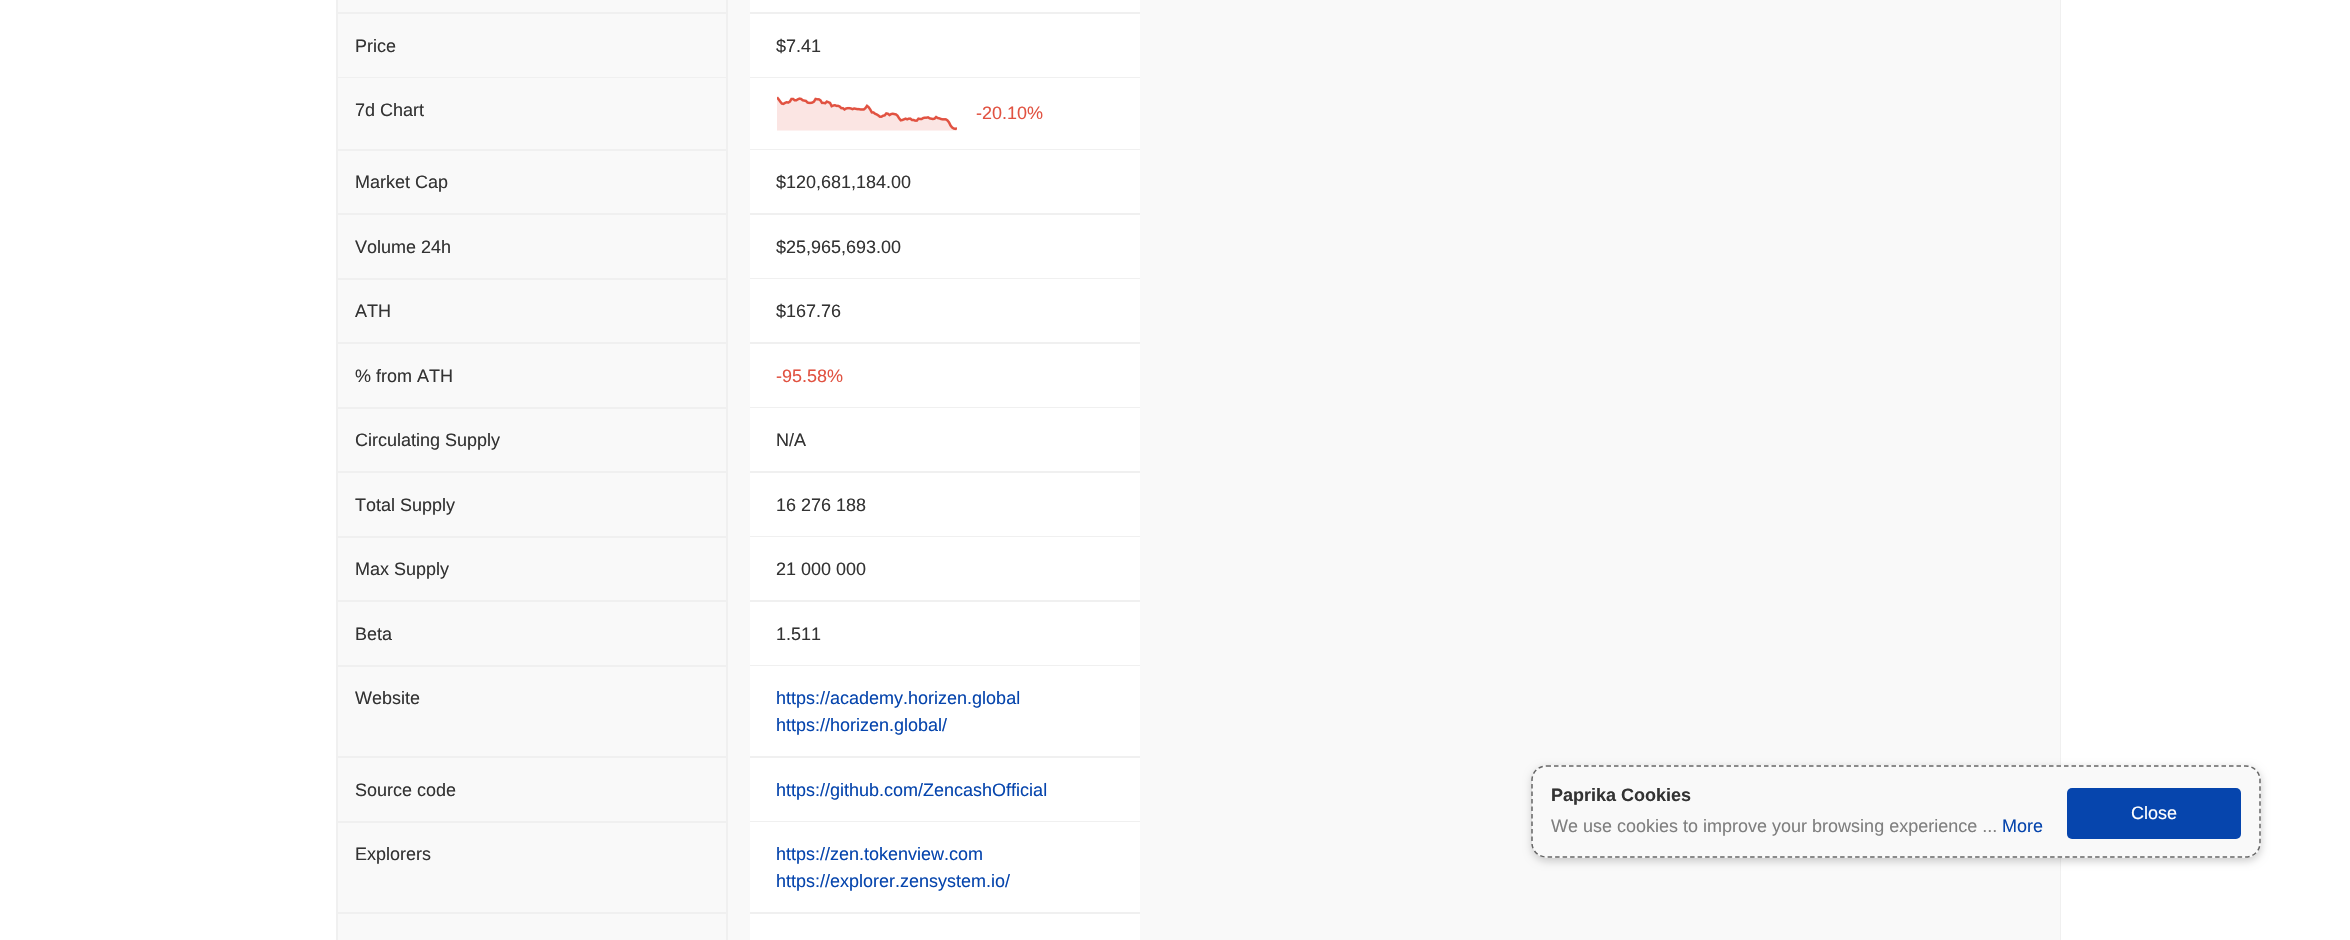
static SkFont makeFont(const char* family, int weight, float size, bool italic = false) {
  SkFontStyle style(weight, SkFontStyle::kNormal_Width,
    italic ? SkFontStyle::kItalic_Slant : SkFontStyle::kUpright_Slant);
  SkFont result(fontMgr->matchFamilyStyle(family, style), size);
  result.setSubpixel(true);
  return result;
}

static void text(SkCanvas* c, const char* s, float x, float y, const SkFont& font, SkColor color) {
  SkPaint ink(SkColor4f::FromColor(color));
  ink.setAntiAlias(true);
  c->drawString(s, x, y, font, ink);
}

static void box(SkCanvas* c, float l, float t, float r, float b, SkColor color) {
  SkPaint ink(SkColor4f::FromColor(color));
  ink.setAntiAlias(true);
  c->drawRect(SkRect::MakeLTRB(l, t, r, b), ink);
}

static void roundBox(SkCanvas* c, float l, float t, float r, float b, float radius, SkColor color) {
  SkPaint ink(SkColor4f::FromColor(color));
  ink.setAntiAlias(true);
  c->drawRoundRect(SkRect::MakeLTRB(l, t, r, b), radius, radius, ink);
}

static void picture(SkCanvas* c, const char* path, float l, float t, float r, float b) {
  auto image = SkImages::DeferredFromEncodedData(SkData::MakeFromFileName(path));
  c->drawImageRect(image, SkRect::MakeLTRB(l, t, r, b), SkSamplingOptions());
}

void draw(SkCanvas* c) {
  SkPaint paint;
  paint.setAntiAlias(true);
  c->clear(0xffffffff);
  paint.setStyle(SkPaint::kStroke_Style);
  paint.setStrokeWidth(2);
  paint.setColor(0xfff0f0f0);
  c->drawRect(SkRect::MakeLTRB(337, -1, 2060, 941), paint);
  box(c, 338, 0, 2060, 78, 0xfff9f9f9);
  box(c, 726, 0, 728, 78, 0xfff0f0f0);
  box(c, 338, 12, 728, 14, 0xfff0f0f0);
  box(c, 750, 0, 1140, 12, 0xffffffff);
  box(c, 750, 12, 1140, 14, 0xfff0f0f0);
  box(c, 338, 77, 728, 78, 0xfff0f0f0);
  SkFont face1 = makeFont("Liberation Sans", 400, 18);
  text(c, "Price", 355, 52, face1, 0xff333333);
  box(c, 750, 14, 1140, 77, 0xffffffff);
  box(c, 750, 77, 1140, 78, 0xfff0f0f0);
  text(c, "$7.41", 776, 52, face1, 0xff333333);
  box(c, 728, 78, 2060, 150, 0xfff9f9f9);
  box(c, 338, 78, 726, 149, 0xfff9f9f9);
  box(c, 338, 150, 2060, 940, 0xfff9f9f9);
  box(c, 726, 78, 728, 215, 0xfff0f0f0);
  box(c, 338, 149, 728, 151, 0xfff0f0f0);
  text(c, "7d Chart", 355, 116, face1, 0xff333333);
  box(c, 750, 78, 1140, 149, 0xffffffff);
  box(c, 750, 149, 1140, 150, 0xfff0f0f0);
  picture(c, "img_01.png", 777, 96, 957, 131);
  text(c, "-20.10%", 976, 119, face1, 0xffe15241);
  box(c, 338, 213, 728, 215, 0xfff0f0f0);
  text(c, "Market Cap", 355, 188, face1, 0xff333333);
  box(c, 750, 150, 1140, 213, 0xffffffff);
  box(c, 750, 213, 1140, 215, 0xfff0f0f0);
  text(c, "$120,681,184.00", 776, 188, face1, 0xff333333);
  box(c, 726, 215, 728, 344, 0xfff0f0f0);
  box(c, 338, 278, 728, 280, 0xfff0f0f0);
  text(c, "Volume 24h", 355, 253, face1, 0xff333333);
  box(c, 750, 215, 1140, 278, 0xffffffff);
  box(c, 750, 278, 1140, 279, 0xfff0f0f0);
  text(c, "$25,965,693.00", 776, 253, face1, 0xff333333);
  box(c, 338, 342, 728, 344, 0xfff0f0f0);
  text(c, "ATH", 355, 317, face1, 0xff333333);
  box(c, 750, 279, 1140, 342, 0xffffffff);
  box(c, 750, 342, 1140, 344, 0xfff0f0f0);
  text(c, "$167.76", 776, 317, face1, 0xff333333);
  box(c, 726, 344, 728, 473, 0xfff0f0f0);
  box(c, 338, 407, 728, 409, 0xfff0f0f0);
  text(c, "% from ATH", 355, 382, face1, 0xff333333);
  box(c, 750, 344, 1140, 407, 0xffffffff);
  box(c, 750, 407, 1140, 408, 0xfff0f0f0);
  text(c, "-95.58%", 776, 382, face1, 0xffe15241);
  box(c, 338, 471, 728, 473, 0xfff0f0f0);
  text(c, "Circulating Supply", 355, 446, face1, 0xff333333);
  box(c, 750, 408, 1140, 471, 0xffffffff);
  box(c, 750, 471, 1140, 473, 0xfff0f0f0);
  text(c, "N/A", 776, 446, face1, 0xff333333);
  box(c, 726, 473, 728, 602, 0xfff0f0f0);
  box(c, 338, 536, 728, 538, 0xfff0f0f0);
  text(c, "Total Supply", 355, 511, face1, 0xff333333);
  box(c, 750, 473, 1140, 536, 0xffffffff);
  box(c, 750, 536, 1140, 537, 0xfff0f0f0);
  text(c, "16 276 188", 776, 511, face1, 0xff333333);
  box(c, 338, 600, 728, 602, 0xfff0f0f0);
  text(c, "Max Supply", 355, 575, face1, 0xff333333);
  box(c, 750, 537, 1140, 600, 0xffffffff);
  box(c, 750, 600, 1140, 602, 0xfff0f0f0);
  text(c, "21 000 000", 776, 575, face1, 0xff333333);
  box(c, 726, 602, 728, 758, 0xfff0f0f0);
  box(c, 338, 665, 728, 667, 0xfff0f0f0);
  text(c, "Beta", 355, 640, face1, 0xff333333);
  box(c, 750, 602, 1140, 665, 0xffffffff);
  box(c, 750, 665, 1140, 666, 0xfff0f0f0);
  text(c, "1.511", 776, 640, face1, 0xff333333);
  box(c, 338, 756, 728, 758, 0xfff0f0f0);
  text(c, "Website", 355, 704, face1, 0xff333333);
  box(c, 750, 666, 1140, 756, 0xffffffff);
  box(c, 750, 756, 1140, 758, 0xfff0f0f0);
  text(c, "https://academy.horizen.global", 776, 704, face1, 0xff0645ad);
  text(c, "https://horizen.global/", 776, 731, face1, 0xff0645ad);
  box(c, 726, 758, 728, 940, 0xfff0f0f0);
  box(c, 338, 821, 728, 823, 0xfff0f0f0);
  text(c, "Source code", 355, 796, face1, 0xff333333);
  box(c, 750, 758, 1140, 821, 0xffffffff);
  box(c, 750, 821, 1140, 822, 0xfff0f0f0);
  text(c, "https://github.com/ZencashOfficial", 776, 796, face1, 0xff0645ad);
  box(c, 338, 912, 728, 914, 0xfff0f0f0);
  text(c, "Explorers", 355, 860, face1, 0xff333333);
  box(c, 750, 822, 1140, 912, 0xffffffff);
  box(c, 750, 912, 1140, 914, 0xfff0f0f0);
  text(c, "https://zen.tokenview.com", 776, 860, face1, 0xff0645ad);
  text(c, "https://explorer.zensystem.io/", 776, 887, face1, 0xff0645ad);
  box(c, 750, 914, 1140, 940, 0xffffffff);
  paint.setStyle(SkPaint::kFill_Style);
  paint.setColor(0x33000000);
  paint.setMaskFilter(SkMaskFilter::MakeBlur(kNormal_SkBlurStyle, 4.5f));
  c->drawRoundRect(SkRect::MakeLTRB(1532, 768, 2261, 861), 15, 15, paint);
  paint.setMaskFilter(nullptr);
  roundBox(c, 1532, 765, 2261, 858, 15, 0xfff9f9f9);
  paint.setStyle(SkPaint::kStroke_Style);
  paint.setStrokeWidth(1.5f);
  paint.setColor(0xff666666);
  paint.setPathEffect(SkDashPathEffect::Make({{4.5f, 3}}, 0));
  c->drawPath(SkPathBuilder().moveTo(1546.5f, 766).lineTo(2245.5f, 766).cubicTo(2253.5f, 766, 2260, 772, 2260, 780).lineTo(2260, 843).cubicTo(2260, 851, 2253.5f, 857, 2245.5f, 857).lineTo(1546.5f, 857).cubicTo(1538.5f, 857, 1532, 851, 1532, 843).lineTo(1532, 780).cubicTo(1532, 772, 1538.5f, 766, 1546.5f, 766).close().detach(), paint);
  paint.setPathEffect(nullptr);
  SkFont face2 = makeFont("Liberation Sans", 700, 18);
  text(c, "Paprika Cookies", 1551, 801, face2, 0xff333333);
  text(c, "We use cookies to improve your browsing experience ...", 1551, 832, face1, 0xff7f7f7f);
  text(c, "More", 2002, 832, face1, 0xff0645ad);
  roundBox(c, 2067, 788, 2241, 839, 5, 0xff0645ad);
  text(c, "Close", 2131, 819, face1, 0xffffffff);
}
